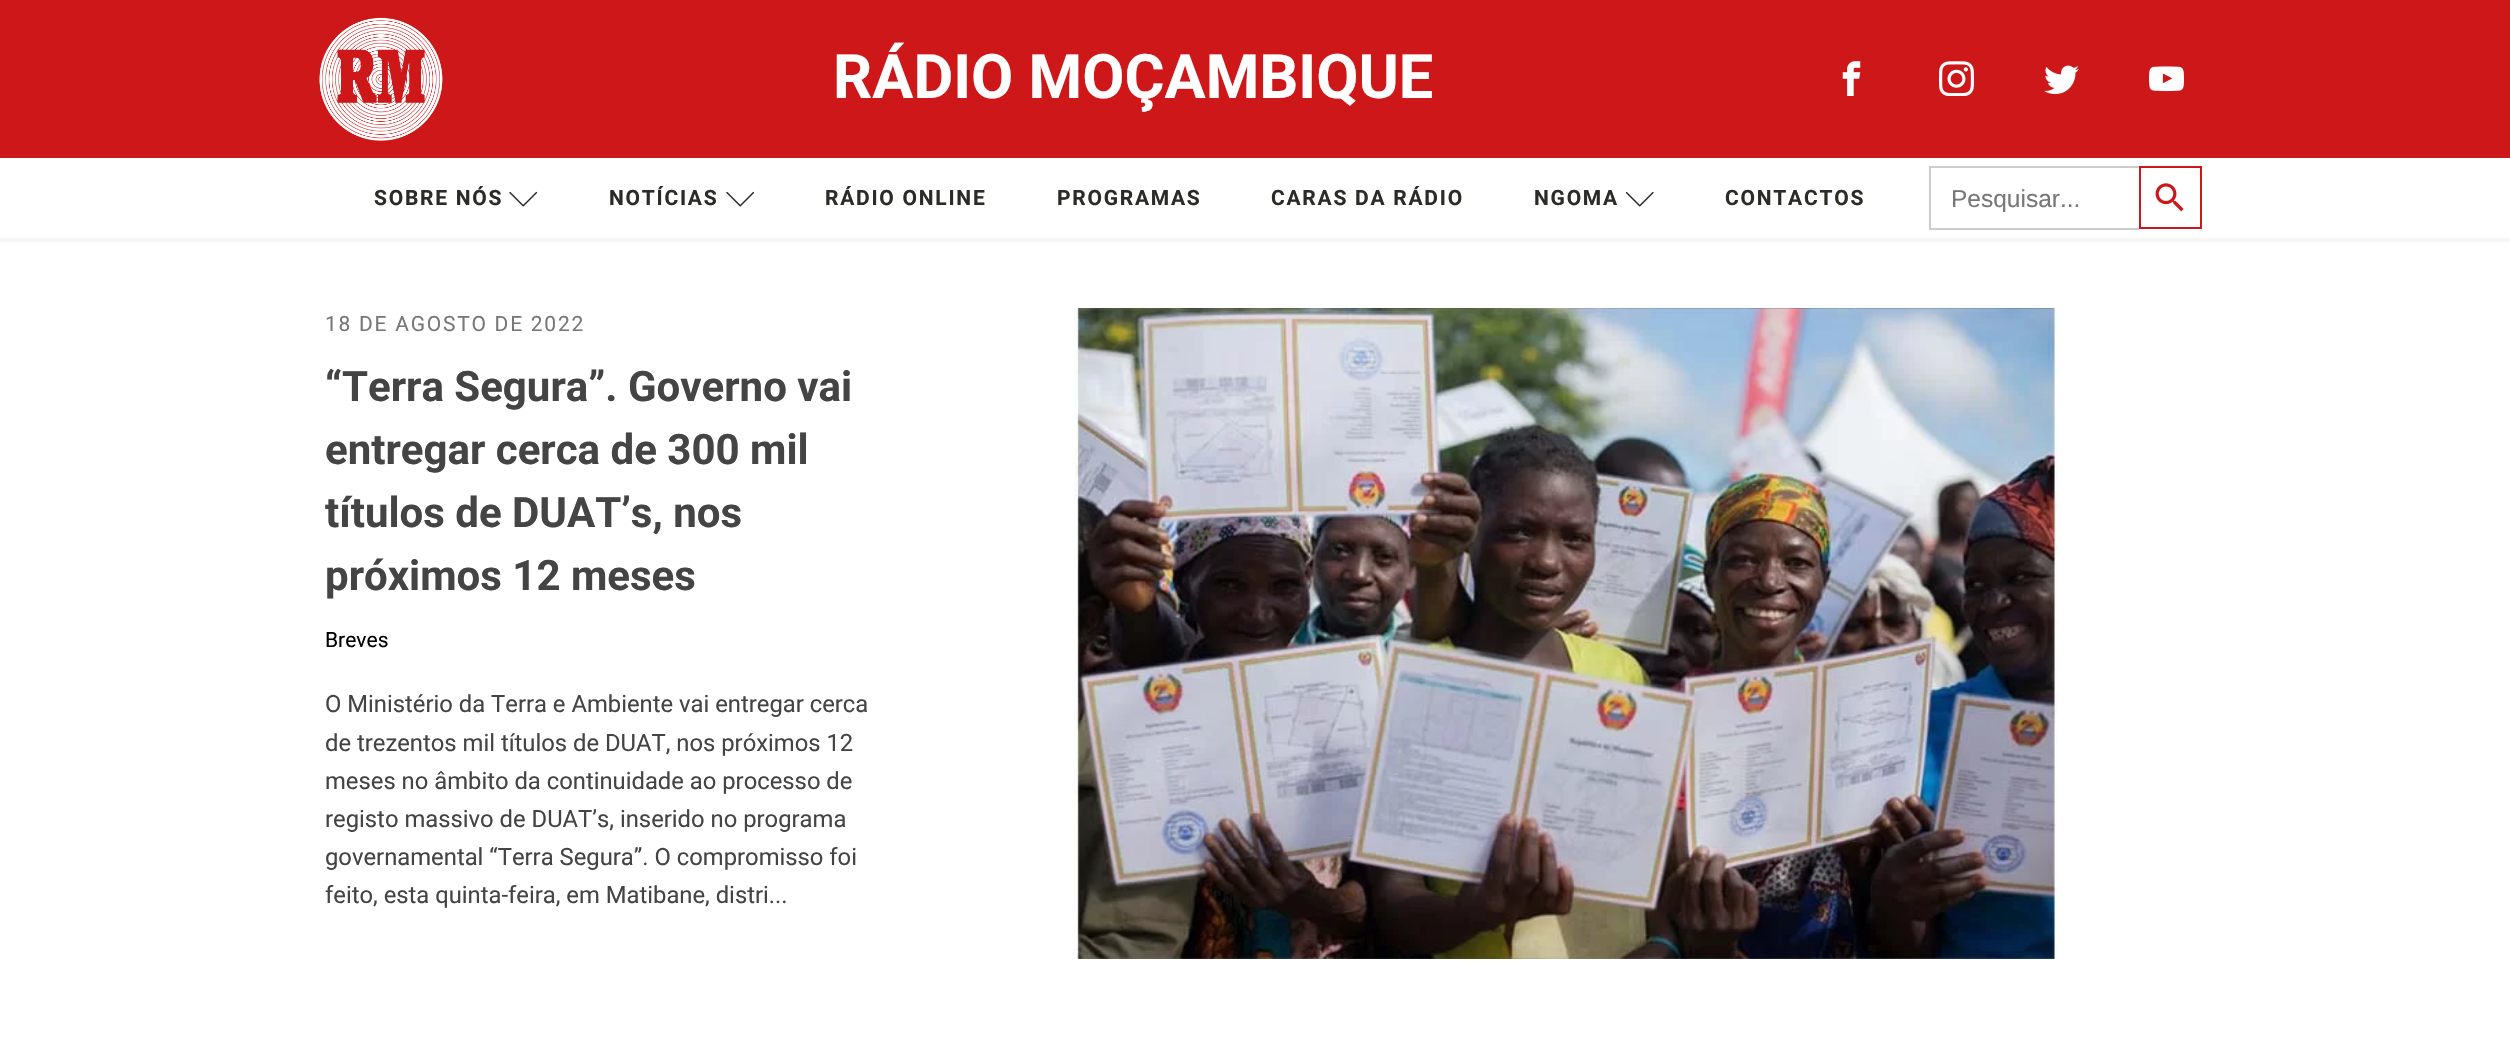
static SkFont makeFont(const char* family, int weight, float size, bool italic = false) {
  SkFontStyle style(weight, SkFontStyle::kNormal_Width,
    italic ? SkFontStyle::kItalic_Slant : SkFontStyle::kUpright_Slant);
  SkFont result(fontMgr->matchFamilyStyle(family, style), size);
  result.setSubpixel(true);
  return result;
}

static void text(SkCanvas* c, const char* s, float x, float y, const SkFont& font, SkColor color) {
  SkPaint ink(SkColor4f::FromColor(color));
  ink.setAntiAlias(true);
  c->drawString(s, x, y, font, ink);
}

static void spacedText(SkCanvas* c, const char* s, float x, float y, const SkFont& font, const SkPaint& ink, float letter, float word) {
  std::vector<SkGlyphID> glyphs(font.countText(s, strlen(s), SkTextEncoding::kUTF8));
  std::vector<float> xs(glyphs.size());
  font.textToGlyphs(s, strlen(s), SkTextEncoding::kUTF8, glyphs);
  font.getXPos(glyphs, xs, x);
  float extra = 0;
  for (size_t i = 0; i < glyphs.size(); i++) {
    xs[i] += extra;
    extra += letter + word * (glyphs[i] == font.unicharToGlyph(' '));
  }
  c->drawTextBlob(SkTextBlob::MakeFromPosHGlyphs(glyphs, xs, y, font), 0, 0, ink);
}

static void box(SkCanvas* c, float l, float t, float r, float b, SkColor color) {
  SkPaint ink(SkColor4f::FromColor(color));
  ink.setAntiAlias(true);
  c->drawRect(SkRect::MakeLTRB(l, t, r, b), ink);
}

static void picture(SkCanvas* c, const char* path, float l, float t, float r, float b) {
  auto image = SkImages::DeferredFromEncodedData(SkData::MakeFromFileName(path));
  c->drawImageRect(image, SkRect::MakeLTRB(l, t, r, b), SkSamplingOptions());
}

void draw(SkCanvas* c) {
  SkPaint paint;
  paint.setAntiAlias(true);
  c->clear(0xffffffff);
  box(c, 0, 0, 2510, 158, 0xffcd1719);
  picture(c, "img_01.png", 319, 17, 443, 141);
  SkFont face1 = makeFont("Roboto", 700, 61.25f);
  text(c, "RÁDIO MOÇAMBIQUE", 833, 98, face1, 0xffffffff);
  picture(c, "img_02.png", 1842, 61, 1861, 96);
  picture(c, "img_03.png", 1939, 61, 1974, 96);
  picture(c, "img_04.png", 2044, 65, 2079, 95);
  picture(c, "img_05.png", 2149, 66, 2184, 92);
  box(c, 0, 238, 2510, 242, 0xfff6f6f6);
  SkFont face2 = makeFont("Roboto", 700, 21);
  paint.setColor(0xff2b2c27);
  spacedText(c, "SOBRE NÓS", 374, 205, face2, paint, 1.75f, 0);
  picture(c, "img_06.png", 509, 191, 538, 207);
  spacedText(c, "NOTÍCIAS", 609, 205, face2, paint, 1.75f, 0);
  picture(c, "img_07.png", 726, 191, 754, 207);
  spacedText(c, "RÁDIO ONLINE", 825, 205, face2, paint, 1.75f, 0);
  spacedText(c, "PROGRAMAS", 1057, 205, face2, paint, 1.75f, 0);
  spacedText(c, "CARAS DA RÁDIO", 1271, 205, face2, paint, 1.75f, 0);
  spacedText(c, "NGOMA", 1534, 205, face2, paint, 1.75f, 0);
  picture(c, "img_08.png", 1626, 191, 1654, 207);
  spacedText(c, "CONTACTOS", 1725, 205, face2, paint, 1.75f, 0);
  box(c, 1929, 166, 2139, 168, 0xffcccccc);
  box(c, 1929, 228, 2139, 230, 0xffcccccc);
  box(c, 1929, 166, 1931, 229, 0xffcccccc);
  SkFont face3 = makeFont("Liberation Sans", 400, 24.5f);
  text(c, "Pesquisar...", 1951, 207, face3, 0xff777777);
  paint.setStyle(SkPaint::kStroke_Style);
  paint.setStrokeWidth(2);
  paint.setColor(0xffcd1719);
  c->drawRect(SkRect::MakeLTRB(2140, 167, 2201, 228), paint);
  picture(c, "img_09.png", 2155, 183, 2184, 212);
  SkFont face4 = makeFont("Roboto", 400, 21);
  paint.setStyle(SkPaint::kFill_Style);
  paint.setColor(0xff777777);
  spacedText(c, "18 DE AGOSTO DE 2022", 325, 331, face4, paint, 1.75f, 0);
  SkFont face5 = makeFont("Roboto", 700, 42);
  text(c, "“Terra Segura”. Governo vai", 325, 401, face5, 0xff444444);
  text(c, "entregar cerca de 300 mil", 325, 464, face5, 0xff444444);
  text(c, "títulos de DUAT’s, nos", 325, 527, face5, 0xff444444);
  text(c, "próximos 12 meses", 325, 590, face5, 0xff444444);
  text(c, "Breves", 325, 647, face4, 0xff000000);
  SkFont face6 = makeFont("Roboto", 400, 23.8f);
  text(c, "O Ministério da Terra e Ambiente vai entregar cerca", 325, 712, face6, 0xff444444);
  c->save();
  c->clipRect(SkRect::MakeLTRB(326, 686, 889, 915));
  text(c, "de trezentos mil títulos de DUAT, nos próximos 12", 325, 751, face6, 0xff444444);
  c->restore();
  text(c, "meses no âmbito da continuidade ao processo de", 325, 789, face6, 0xff444444);
  text(c, "registo massivo de DUAT’s, inserido no programa", 325, 827, face6, 0xff444444);
  c->save();
  c->clipRect(SkRect::MakeLTRB(326, 686, 889, 915));
  text(c, "governamental “Terra Segura”. O compromisso foi", 325, 865, face6, 0xff444444);
  c->restore();
  text(c, "feito, esta quinta-feira, em Matibane, distri...", 325, 903, face6, 0xff444444);
  picture(c, "img_10.png", 1074, 308, 2058, 959);
}
